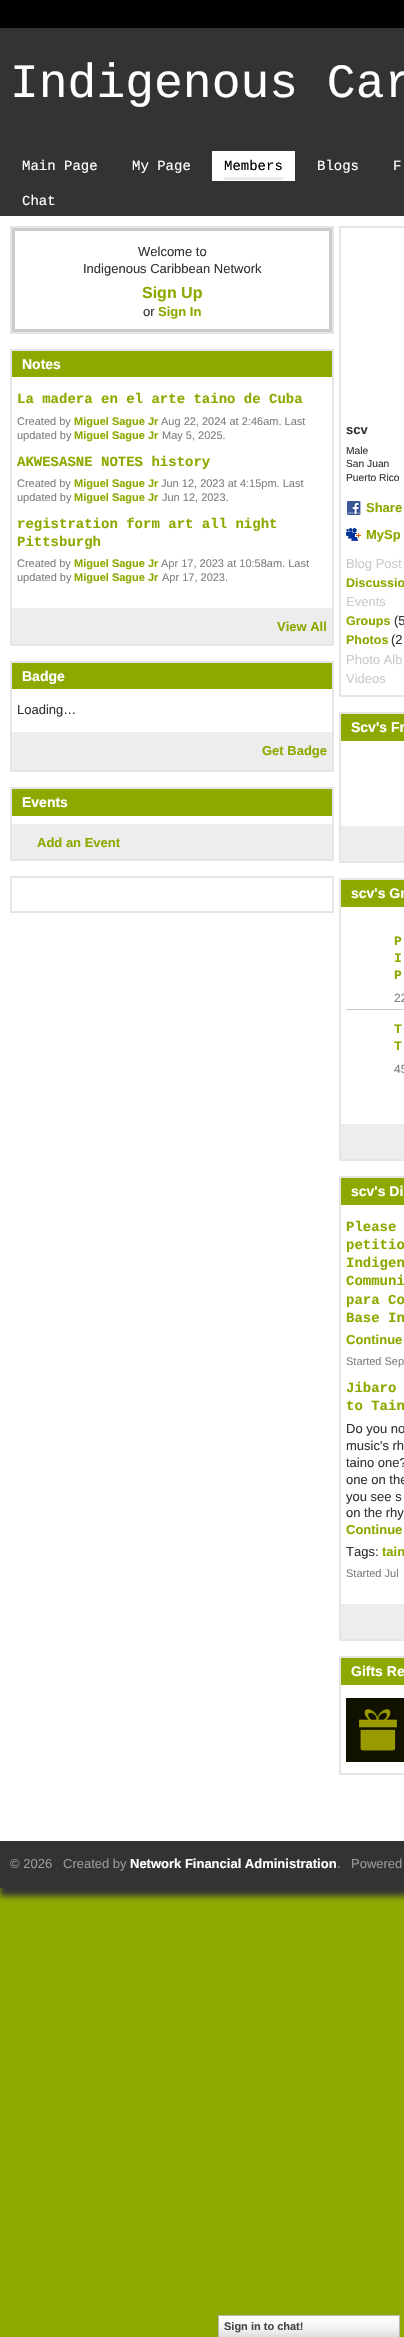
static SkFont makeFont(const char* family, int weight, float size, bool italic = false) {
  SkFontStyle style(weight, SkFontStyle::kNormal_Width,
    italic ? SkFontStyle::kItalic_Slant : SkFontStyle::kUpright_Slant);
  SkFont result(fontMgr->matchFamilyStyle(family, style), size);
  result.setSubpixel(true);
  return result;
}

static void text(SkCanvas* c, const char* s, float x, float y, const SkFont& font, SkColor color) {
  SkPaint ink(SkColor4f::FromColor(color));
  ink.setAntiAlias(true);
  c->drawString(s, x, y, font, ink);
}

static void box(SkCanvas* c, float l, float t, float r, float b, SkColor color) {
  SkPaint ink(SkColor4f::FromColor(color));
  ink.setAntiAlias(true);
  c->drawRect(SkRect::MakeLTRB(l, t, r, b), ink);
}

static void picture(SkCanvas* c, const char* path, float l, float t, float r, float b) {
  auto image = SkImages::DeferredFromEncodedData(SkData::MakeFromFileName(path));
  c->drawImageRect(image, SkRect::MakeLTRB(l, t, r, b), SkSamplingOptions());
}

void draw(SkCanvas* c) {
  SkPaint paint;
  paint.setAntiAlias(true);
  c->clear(0xff8ea800);
  box(c, 0, 0, 404, 28, 0xff000000);
  box(c, 0, 28, 404, 216, 0xff333333);
  SkFont face1 = makeFont("Liberation Mono", 400, 48);
  text(c, "Indigenous Car", 10, 97, face1, 0xffffffff);
  SkFont face2 = makeFont("Liberation Mono", 400, 14);
  text(c, "Main Page", 22, 170, face2, 0xffffffff);
  text(c, "My Page", 132, 170, face2, 0xffffffff);
  box(c, 212, 151, 295, 181, 0xffffffff);
  text(c, "Members", 224, 170, face2, 0xff000000);
  box(c, 224, 177, 283, 180, 0xffededed);
  text(c, "Blogs", 317, 170, face2, 0xffffffff);
  text(c, "F", 393, 170, face2, 0xffffffff);
  text(c, "Chat", 22, 205, face2, 0xffffffff);
  box(c, 0, 216, 404, 1841, 0xffffffff);
  paint.setStyle(SkPaint::kStroke_Style);
  paint.setStrokeWidth(2);
  paint.setColor(0xffe5e5e5);
  c->drawRect(SkRect::MakeLTRB(11, 227, 333, 333), paint);
  paint.setStrokeWidth(3);
  paint.setColor(0xffcbcbcb);
  c->drawRect(SkRect::MakeLTRB(13.5f, 229.5f, 330.5f, 330.5f), paint);
  SkFont face3 = makeFont("Liberation Sans", 400, 13);
  text(c, "Welcome to", 138, 256, face3, 0xff333333);
  text(c, "Indigenous Caribbean Network", 83, 273, face3, 0xff333333);
  SkFont face4 = makeFont("Liberation Sans", 700, 16);
  text(c, "Sign Up", 142, 298, face4, 0xff8ea800);
  text(c, "or", 143, 316, face3, 0xff333333);
  SkFont face5 = makeFont("Liberation Sans", 700, 13);
  text(c, "Sign In", 158, 316, face5, 0xff8ea800);
  paint.setStrokeWidth(2);
  paint.setColor(0xffe5e5e5);
  c->drawRect(SkRect::MakeLTRB(11, 350, 333, 645), paint);
  box(c, 12, 351, 332, 377, 0xff8ea800);
  SkFont face6 = makeFont("Liberation Sans", 700, 14);
  text(c, "Notes", 22, 369, face6, 0xffffffff);
  SkFont face7 = makeFont("Liberation Mono", 700, 14);
  text(c, "La madera en el arte taino de Cuba", 17, 403, face7, 0xff8ea800);
  SkFont face8 = makeFont("Liberation Sans", 400, 11);
  text(c, "Created by", 17, 425, face8, 0xff7f7f7f);
  SkFont face9 = makeFont("Liberation Sans", 700, 11);
  text(c, "Miguel Sague Jr", 74, 425, face9, 0xff8ea800);
  text(c, "Aug 22, 2024 at 2:46am. Last", 161, 425, face8, 0xff7f7f7f);
  text(c, "updated by", 17, 439, face8, 0xff7f7f7f);
  text(c, "Miguel Sague Jr", 74, 439, face9, 0xff8ea800);
  text(c, "May 5, 2025.", 162, 439, face8, 0xff7f7f7f);
  text(c, "AKWESASNE NOTES history", 17, 466, face7, 0xff8ea800);
  text(c, "Created by", 17, 487, face8, 0xff7f7f7f);
  text(c, "Miguel Sague Jr", 74, 487, face9, 0xff8ea800);
  text(c, "Jun 12, 2023 at 4:15pm. Last", 161, 487, face8, 0xff7f7f7f);
  text(c, "updated by", 17, 501, face8, 0xff7f7f7f);
  text(c, "Miguel Sague Jr", 74, 501, face9, 0xff8ea800);
  text(c, "Jun 12, 2023.", 162, 501, face8, 0xff7f7f7f);
  text(c, "registration form art all night", 17, 528, face7, 0xff8ea800);
  text(c, "Pittsburgh", 17, 546, face7, 0xff8ea800);
  text(c, "Created by", 17, 567, face8, 0xff7f7f7f);
  text(c, "Miguel Sague Jr", 74, 567, face9, 0xff8ea800);
  text(c, "Apr 17, 2023 at 10:58am. Last", 161, 567, face8, 0xff7f7f7f);
  text(c, "updated by", 17, 581, face8, 0xff7f7f7f);
  text(c, "Miguel Sague Jr", 74, 581, face9, 0xff8ea800);
  text(c, "Apr 17, 2023.", 162, 581, face8, 0xff7f7f7f);
  box(c, 12, 608, 332, 644, 0xffededed);
  text(c, "View All", 277, 631, face5, 0xff8ea800);
  c->drawRect(SkRect::MakeLTRB(11, 662, 333, 771), paint);
  box(c, 12, 663, 332, 689, 0xff8ea800);
  text(c, "Badge", 22, 681, face6, 0xffffffff);
  text(c, "Loading…", 17, 714, face3, 0xff333333);
  box(c, 12, 732, 332, 770, 0xffededed);
  text(c, "Get Badge", 262, 755, face5, 0xff8ea800);
  c->drawRect(SkRect::MakeLTRB(11, 788, 333, 860), paint);
  box(c, 12, 789, 332, 816, 0xff8ea800);
  text(c, "Events", 22, 807, face6, 0xffffffff);
  box(c, 12, 824, 332, 859, 0xffededed);
  text(c, "Add an Event", 37, 847, face5, 0xff8ea800);
  c->drawRect(SkRect::MakeLTRB(11, 877, 333, 912), paint);
  c->drawRect(SkRect::MakeLTRB(340, 227, 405, 696), paint);
  text(c, "scv", 346, 434, face5, 0xff333333);
  SkFont face10 = makeFont("Liberation Sans", 400, 10.25f);
  text(c, "Male", 346, 454, face10, 0xff333333);
  text(c, "San Juan", 346, 467, face10, 0xff333333);
  text(c, "Puerto Rico", 346, 481, face10, 0xff333333);
  picture(c, "img_01.png", 347, 501, 361, 515);
  text(c, "Share", 366, 512, face5, 0xff8ea800);
  picture(c, "img_02.png", 346, 528, 361, 541);
  text(c, "MySp", 366, 539, face5, 0xff8ea800);
  text(c, "Blog Post", 346, 568, face3, 0xffcccccc);
  SkFont face11 = makeFont("Liberation Sans", 700, 12.5f);
  text(c, "Discussio", 346, 587, face11, 0xff8ea800);
  text(c, "Events", 346, 606, face3, 0xffcccccc);
  text(c, "Groups", 346, 625, face11, 0xff8ea800);
  text(c, "(5", 394, 625, face3, 0xff333333);
  text(c, "Photos", 346, 644, face11, 0xff8ea800);
  text(c, "(2", 391, 644, face3, 0xff333333);
  text(c, "Photo Alb", 346, 664, face3, 0xffcccccc);
  text(c, "Videos", 346, 683, face3, 0xffcccccc);
  c->drawRect(SkRect::MakeLTRB(340, 713, 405, 862), paint);
  box(c, 341, 714, 404, 741, 0xff8ea800);
  text(c, "Scv's Fr", 351, 732, face6, 0xffffffff);
  box(c, 341, 826, 404, 861, 0xffededed);
  c->drawRect(SkRect::MakeLTRB(340, 879, 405, 1160), paint);
  box(c, 341, 880, 404, 907, 0xff8ea800);
  text(c, "scv's Gr", 351, 898, face6, 0xffffffff);
  box(c, 346, 1009, 404, 1010, 0xffcbcbcb);
  SkFont face12 = makeFont("Liberation Mono", 700, 13);
  text(c, "P", 394, 945, face12, 0xff8ea800);
  text(c, "I", 394, 962, face12, 0xff8ea800);
  text(c, "P", 394, 979, face12, 0xff8ea800);
  SkFont face13 = makeFont("Liberation Sans", 400, 12);
  text(c, "22", 394, 1002, face13, 0xff7f7f7f);
  text(c, "T", 394, 1033, face12, 0xff8ea800);
  text(c, "T", 394, 1050, face12, 0xff8ea800);
  text(c, "45", 394, 1073, face13, 0xff7f7f7f);
  box(c, 341, 1124, 404, 1159, 0xffededed);
  c->drawRect(SkRect::MakeLTRB(340, 1177, 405, 1640), paint);
  box(c, 341, 1178, 404, 1205, 0xff8ea800);
  text(c, "scv's Di", 351, 1196, face6, 0xffffffff);
  text(c, "Please", 346, 1231, face7, 0xff8ea800);
  text(c, "petitio", 346, 1249, face7, 0xff8ea800);
  text(c, "Indigen", 346, 1267, face7, 0xff8ea800);
  text(c, "Communi", 346, 1285, face7, 0xff8ea800);
  text(c, "para Co", 346, 1304, face7, 0xff8ea800);
  text(c, "Base In", 346, 1322, face7, 0xff8ea800);
  text(c, "Continue", 346, 1344, face5, 0xff8ea800);
  text(c, "Started Sep", 346, 1365, face8, 0xff7f7f7f);
  text(c, "Jibaro", 346, 1392, face7, 0xff8ea800);
  text(c, "to Tain", 346, 1410, face7, 0xff8ea800);
  text(c, "Do you no", 346, 1433, face3, 0xff333333);
  text(c, "music's rh", 346, 1450, face3, 0xff333333);
  text(c, "taino one?", 346, 1467, face3, 0xff333333);
  text(c, "one on the", 346, 1484, face3, 0xff333333);
  text(c, "you see s", 346, 1501, face3, 0xff333333);
  text(c, "on the rhy", 346, 1517, face3, 0xff333333);
  text(c, "Continue", 346, 1534, face5, 0xff8ea800);
  text(c, "Tags:", 346, 1556, face3, 0xff333333);
  text(c, "tain", 382, 1556, face5, 0xff8ea800);
  text(c, "Started Jul", 346, 1577, face8, 0xff7f7f7f);
  box(c, 341, 1604, 404, 1639, 0xffededed);
  c->drawRect(SkRect::MakeLTRB(340, 1657, 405, 1774), paint);
  box(c, 341, 1658, 404, 1685, 0xff8ea800);
  text(c, "Gifts Re", 351, 1676, face6, 0xffffffff);
  picture(c, "img_03.png", 346, 1698, 404, 1762);
  paint.setStyle(SkPaint::kFill_Style);
  paint.setColor(0xff333333);
  paint.setMaskFilter(SkMaskFilter::MakeBlur(kNormal_SkBlurStyle, 3));
  c->drawRect(SkRect::MakeLTRB(0, 1849, 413, 1896), paint);
  paint.setMaskFilter(nullptr);
  box(c, 0, 1841, 404, 1888, 0xff333333);
  text(c, "© 2026", 10, 1868, face3, 0xff999999);
  text(c, "Created by", 63, 1868, face3, 0xff999999);
  text(c, "Network Financial Administration", 130, 1868, face5, 0xffffffff);
  text(c, ".", 337, 1868, face3, 0xff999999);
  text(c, "Powered", 351, 1868, face3, 0xff999999);
  picture(c, "img_04.png", 219, 2316, 399, 2337);
  paint.setStyle(SkPaint::kStroke_Style);
  paint.setStrokeWidth(1);
  paint.setColor(0xffb7b7b7);
  c->drawRect(SkRect::MakeLTRB(218.5f, 2315.5f, 399.5f, 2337.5f), paint);
  text(c, "Sign in to chat!", 224, 2330, face9, 0xff454545);
}
